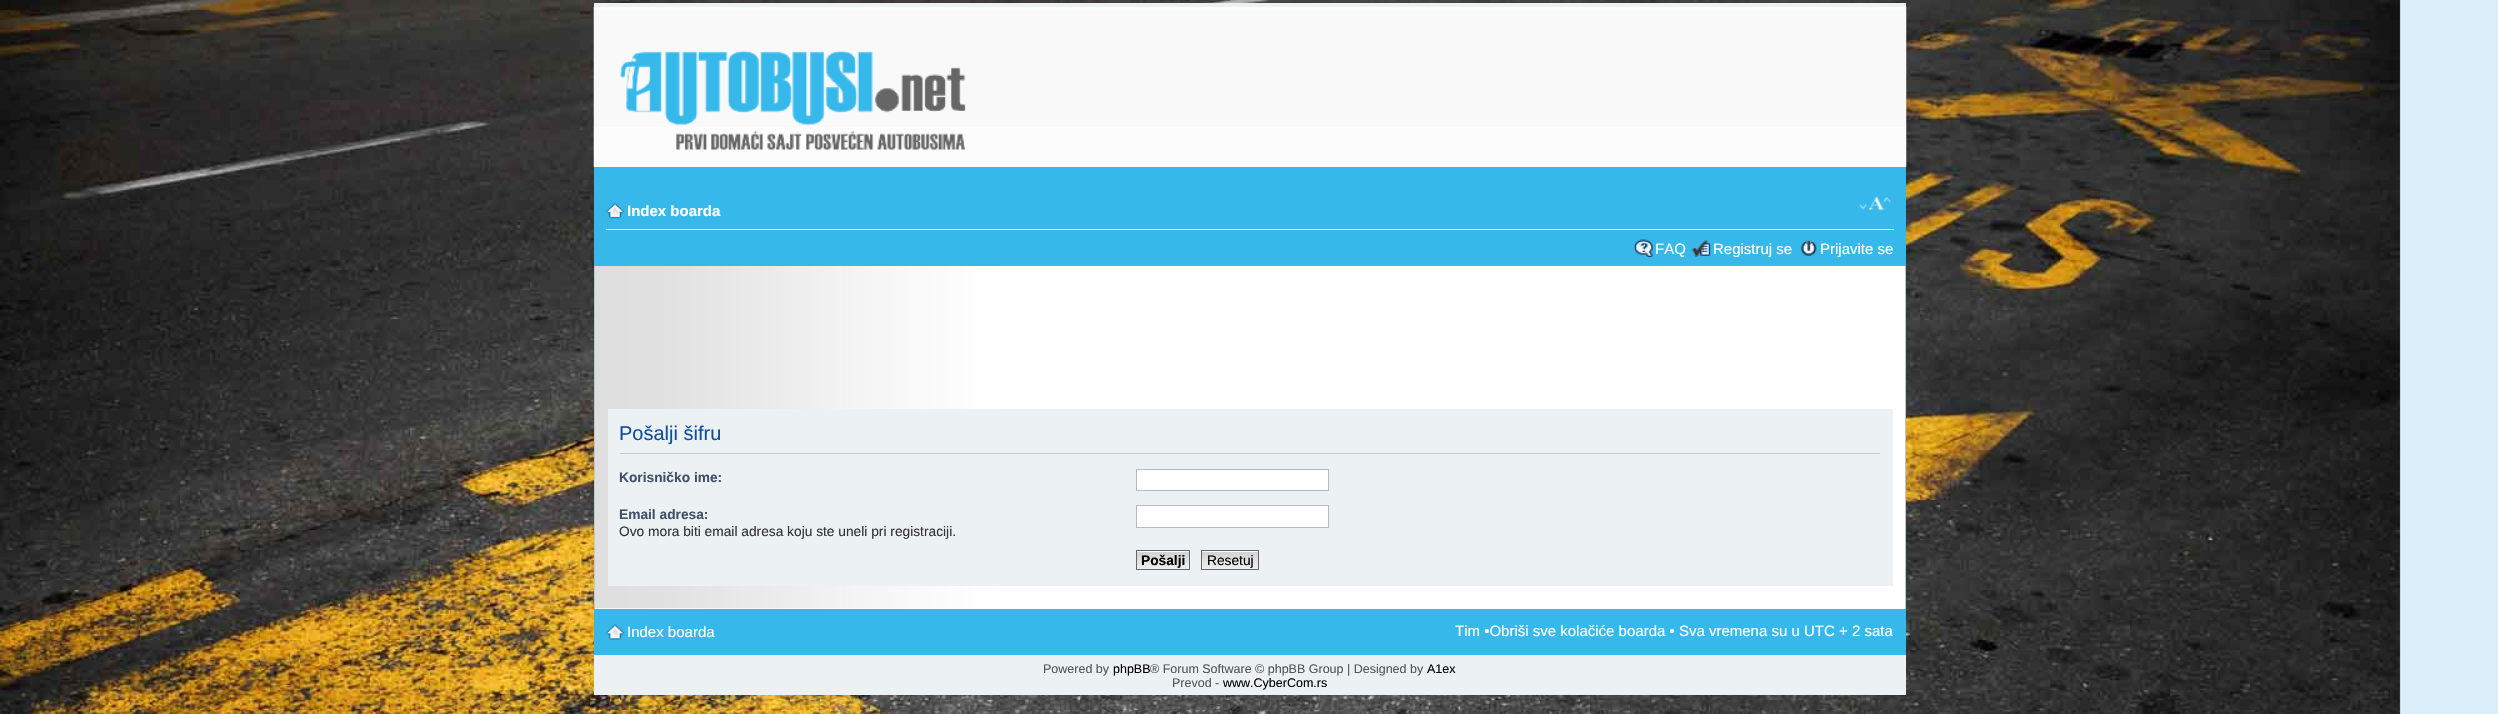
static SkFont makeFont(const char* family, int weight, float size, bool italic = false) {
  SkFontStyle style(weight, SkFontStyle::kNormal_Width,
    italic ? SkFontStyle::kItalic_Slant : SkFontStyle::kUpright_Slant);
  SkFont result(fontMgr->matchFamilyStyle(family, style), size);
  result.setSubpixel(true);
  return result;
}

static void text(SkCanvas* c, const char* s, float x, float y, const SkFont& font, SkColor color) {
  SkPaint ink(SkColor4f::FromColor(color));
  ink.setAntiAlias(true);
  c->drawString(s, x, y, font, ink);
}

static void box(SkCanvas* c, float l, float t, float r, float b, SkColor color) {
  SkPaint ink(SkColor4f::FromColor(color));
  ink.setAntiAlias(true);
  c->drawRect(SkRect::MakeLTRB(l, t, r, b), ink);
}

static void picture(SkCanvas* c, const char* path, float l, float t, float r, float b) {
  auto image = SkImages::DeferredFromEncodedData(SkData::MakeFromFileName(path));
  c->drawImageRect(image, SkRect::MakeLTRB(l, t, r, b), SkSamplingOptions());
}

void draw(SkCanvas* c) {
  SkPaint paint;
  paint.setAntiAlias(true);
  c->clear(0xffdbeffa);
  picture(c, "img_01.png", 0, 0, 2401, 714);
  box(c, 594, 3, 1906, 695, 0xffecf1f3);
  box(c, 594, 167, 1906, 266, 0xff37b8eb);
  picture(c, "img_02.png", 593, 7, 1907, 167);
  picture(c, "img_03.png", 619, 50, 966, 150);
  box(c, 606, 229, 1894, 230, 0xffffffff);
  picture(c, "img_04.png", 606, 203, 624, 219);
  SkFont face1 = makeFont("Liberation Sans", 700, 15);
  text(c, "Index boarda", 627, 216, face1, 0xffffffff);
  picture(c, "img_05.png", 1859, 196, 1891, 210);
  picture(c, "img_06.png", 1633, 239, 1654, 257);
  SkFont face2 = makeFont("Liberation Sans", 400, 15);
  text(c, "FAQ", 1655, 254, face2, 0xffffffff);
  picture(c, "img_07.png", 1692, 240, 1711, 257);
  text(c, "Registruj se", 1713, 254, face2, 0xffffffff);
  picture(c, "img_08.png", 1801, 240, 1817, 256);
  text(c, "Prijavite se", 1820, 254, face2, 0xffffffff);
  box(c, 595, 266, 1905, 609, 0xffffffff);
  picture(c, "img_09.png", 595, 266, 1795, 609);
  box(c, 1905, 266, 1906, 609, 0xffc0c8cd);
  box(c, 594, 266, 595, 609, 0xffc0c8cd);
  box(c, 608, 409, 1893, 586, 0xffecf1f3);
  box(c, 620, 453, 1880, 454, 0xffcccccc);
  SkFont face3 = makeFont("Liberation Sans", 400, 20);
  text(c, "Pošalji šifru", 619, 440, face3, 0xff115098);
  SkFont face4 = makeFont("Liberation Sans", 700, 13.75f);
  text(c, "Korisničko ime:", 619, 482, face4, 0xff425067);
  paint.setColor(0xffffffff);
  c->drawRect(SkRect::MakeLTRB(1136.5f, 469.5f, 1328.5f, 490.5f), paint);
  paint.setStyle(SkPaint::kStroke_Style);
  paint.setStrokeWidth(1);
  paint.setColor(0xffb4bac0);
  c->drawRect(SkRect::MakeLTRB(1136.5f, 469.5f, 1328.5f, 490.5f), paint);
  text(c, "Email adresa:", 619, 519, face4, 0xff425067);
  SkFont face5 = makeFont("Liberation Sans", 400, 13.75f);
  text(c, "Ovo mora biti email adresa koju ste uneli pri registraciji.", 619, 536, face5, 0xff333333);
  paint.setStyle(SkPaint::kFill_Style);
  paint.setColor(0xffffffff);
  c->drawRect(SkRect::MakeLTRB(1136.5f, 505.5f, 1328.5f, 527.5f), paint);
  paint.setStyle(SkPaint::kStroke_Style);
  paint.setColor(0xffb4bac0);
  c->drawRect(SkRect::MakeLTRB(1136.5f, 505.5f, 1328.5f, 527.5f), paint);
  box(c, 1137, 551, 1189, 552, 0xfffafafa);
  picture(c, "img_10.png", 1137, 552, 1189, 569);
  paint.setColor(0xff666666);
  c->drawRect(SkRect::MakeLTRB(1136.5f, 550.5f, 1189.5f, 569.5f), paint);
  text(c, "Pošalji", 1141, 565, face4, 0xff000000);
  box(c, 1202, 551, 1258, 552, 0xfffafafa);
  picture(c, "img_11.png", 1202, 552, 1258, 569);
  c->drawRect(SkRect::MakeLTRB(1201.5f, 550.5f, 1258.5f, 569.5f), paint);
  text(c, "Resetuj", 1207, 565, face5, 0xff000000);
  box(c, 594, 609, 1906, 655, 0xff37b8eb);
  picture(c, "img_12.png", 606, 624, 624, 640);
  text(c, "Index boarda", 627, 637, face2, 0xffffffff);
  text(c, "Tim •Obriši sve kolačiće boarda • Sva vremena su u UTC + 2 sata", 1455, 636, face2, 0xffffffff);
  SkFont face6 = makeFont("Liberation Sans", 400, 12.5f);
  text(c, "Powered by", 1043, 673, face6, 0xff555555);
  text(c, "phpBB", 1113, 673, face6, 0xff000000);
  text(c, "® Forum Software © phpBB Group | Designed by", 1150, 673, face6, 0xff555555);
  text(c, "A1ex", 1427, 673, face6, 0xff000000);
  text(c, "Prevod -", 1172, 687, face6, 0xff555555);
  text(c, "www.CyberCom.rs", 1223, 687, face6, 0xff000000);
}
